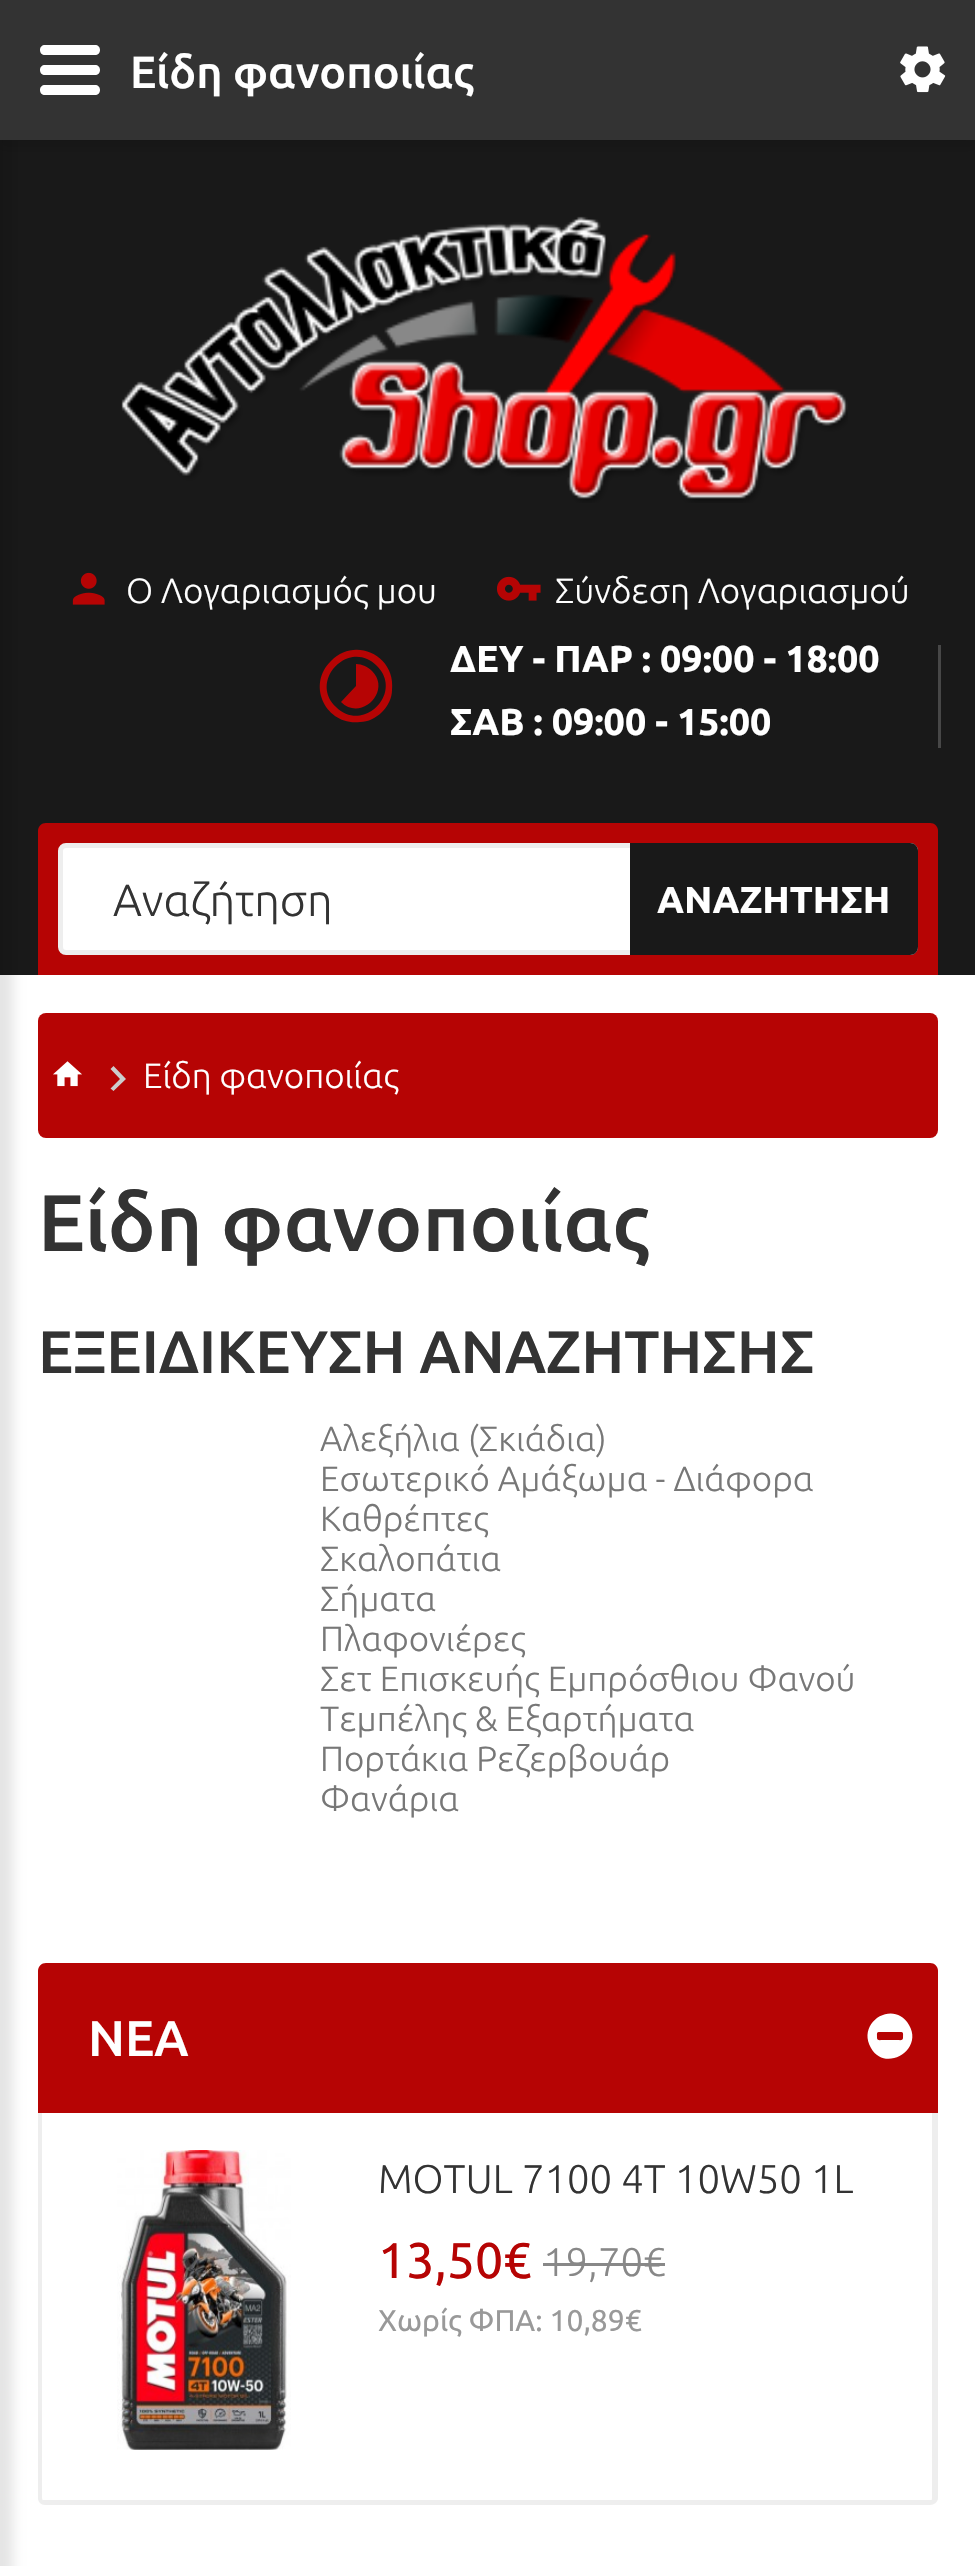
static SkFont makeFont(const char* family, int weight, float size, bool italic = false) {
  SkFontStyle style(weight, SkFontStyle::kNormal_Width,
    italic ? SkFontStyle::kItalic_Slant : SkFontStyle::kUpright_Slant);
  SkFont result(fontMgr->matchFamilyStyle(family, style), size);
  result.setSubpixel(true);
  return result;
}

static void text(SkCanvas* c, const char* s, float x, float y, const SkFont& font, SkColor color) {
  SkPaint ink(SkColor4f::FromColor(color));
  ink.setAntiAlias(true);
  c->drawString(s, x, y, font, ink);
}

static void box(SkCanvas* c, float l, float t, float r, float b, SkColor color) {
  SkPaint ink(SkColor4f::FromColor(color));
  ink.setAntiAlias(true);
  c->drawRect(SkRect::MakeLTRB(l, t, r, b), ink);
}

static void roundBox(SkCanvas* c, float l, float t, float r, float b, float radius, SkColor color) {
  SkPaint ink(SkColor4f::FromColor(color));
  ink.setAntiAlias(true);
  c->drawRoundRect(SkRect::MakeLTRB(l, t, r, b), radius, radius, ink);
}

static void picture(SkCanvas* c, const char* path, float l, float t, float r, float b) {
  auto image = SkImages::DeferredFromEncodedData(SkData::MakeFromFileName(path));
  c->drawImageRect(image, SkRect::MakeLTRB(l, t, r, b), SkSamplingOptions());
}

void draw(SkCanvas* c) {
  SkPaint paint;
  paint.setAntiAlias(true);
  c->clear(0xffffffff);
  box(c, 0, 140, 975, 975, 0xff191919);
  paint.setColor(0x1a000000);
  paint.setMaskFilter(SkMaskFilter::MakeBlur(kNormal_SkBlurStyle, 6));
  c->drawRect(SkRect::MakeLTRB(-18, -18, 13, 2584), paint);
  paint.setMaskFilter(nullptr);
  paint.setMaskFilter(SkMaskFilter::MakeBlur(kNormal_SkBlurStyle, 4));
  c->drawRect(SkRect::MakeLTRB(0, 8, 975, 148), paint);
  paint.setMaskFilter(nullptr);
  box(c, 0, 0, 975, 140, 0xff333333);
  paint.setColor(0xffffffff);
  c->drawPath(SkPathBuilder().moveTo(95, 75).lineTo(45, 75).cubicTo(42, 75, 40, 73, 40, 70).cubicTo(40, 67, 42, 65, 45, 65).lineTo(95, 65).cubicTo(98, 65, 100, 67, 100, 70).cubicTo(100, 73, 98, 75, 95, 75).close().moveTo(95, 95).lineTo(45, 95).cubicTo(42, 95, 40, 93, 40, 90).cubicTo(40, 87, 42, 85, 45, 85).lineTo(95, 85).cubicTo(98, 85, 100, 87, 100, 90).cubicTo(100, 93, 98, 95, 95, 95).close().moveTo(95, 55).lineTo(45, 55).cubicTo(42, 55, 40, 53, 40, 50).cubicTo(40, 47, 42, 45, 45, 45).lineTo(95, 45).cubicTo(98, 45, 100, 47, 100, 50).cubicTo(100, 53, 98, 55, 95, 55).close().detach(), paint);
  SkFont face1 = makeFont("Ubuntu", 500, 45);
  text(c, "Είδη φανοποιίας", 130, 88, face1, 0xffffffff);
  picture(c, "img_01.png", 121, 216, 848, 503);
  picture(c, "img_02.png", 900, 46, 946, 93);
  picture(c, "img_03.png", 72, 572, 105, 605);
  SkFont face2 = makeFont("Ubuntu", 300, 35);
  text(c, "Ο Λογαριασμός μου", 126, 603, face2, 0xffffffff);
  picture(c, "img_04.png", 497, 576, 541, 601);
  text(c, "Σύνδεση Λογαριασμού", 555, 603, face2, 0xffffffff);
  paint.setColor(0xffb60404);
  c->drawPath(SkPathBuilder().moveTo(336, 707).cubicTo(363, 734, 404, 693, 377, 666).cubicTo(350, 638, 308, 680, 336, 707).close().moveTo(331, 661).cubicTo(355, 636, 396, 656, 392, 690).cubicTo(392, 698, 388, 706, 382, 712).cubicTo(376, 718, 368, 722, 360, 722).cubicTo(326, 726, 306, 685, 331, 661).close().moveTo(356, 664).cubicTo(362, 664, 368, 667, 372, 671).cubicTo(392, 691, 361, 722, 341, 702).lineTo(356, 686).close().detach(), paint);
  SkFont face3 = makeFont("Ubuntu", 700, 37.5f);
  text(c, "ΔΕΥ - ΠΑΡ : 09:00 - 18:00", 450, 672, face3, 0xffffffff);
  text(c, "ΣΑΒ : 09:00 - 15:00", 450, 735, face3, 0xffffffff);
  box(c, 938, 645, 941, 748, 0xff474747);
  c->drawPath(SkPathBuilder().moveTo(46, 823).lineTo(930, 823).cubicTo(934.5f, 823, 938, 826.5f, 938, 831).lineTo(938, 975).lineTo(38, 975).lineTo(38, 831).cubicTo(38, 826.5f, 41.5f, 823, 46, 823).close().detach(), paint);
  paint.setColor(0xffffffff);
  c->drawRoundRect(SkRect::MakeLTRB(60.5f, 845.5f, 915.5f, 952.5f), 5.5f, 5.5f, paint);
  paint.setStyle(SkPaint::kStroke_Style);
  paint.setStrokeWidth(5);
  paint.setColor(0xffeeeeee);
  c->drawRoundRect(SkRect::MakeLTRB(60.5f, 845.5f, 915.5f, 952.5f), 5.5f, 5.5f, paint);
  SkFont face4 = makeFont("Ubuntu", 300, 45);
  text(c, "Αναζήτηση", 113, 916, face4, 0xff333333);
  paint.setStyle(SkPaint::kFill_Style);
  paint.setColor(0xff191919);
  c->drawPath(SkPathBuilder().moveTo(630, 843).lineTo(910, 843).cubicTo(914.5f, 843, 918, 846.5f, 918, 851).lineTo(918, 947).cubicTo(918, 951.5f, 914.5f, 955, 910, 955).lineTo(630, 955).close().detach(), paint);
  text(c, "ΑΝΑΖΗΤΗΣΗ", 657, 913, face3, 0xffffffff);
  roundBox(c, 38, 1013, 938, 1138, 8, 0xffb60404);
  picture(c, "img_05.png", 53, 1061, 82, 1087);
  paint.setColor(0xffcccccc);
  c->drawPath(SkPathBuilder().moveTo(113.5f, 1066).lineTo(110.5f, 1069).lineTo(120, 1079).lineTo(110.5f, 1088.5f).lineTo(113.5f, 1091).lineTo(126, 1079).close().detach(), paint);
  text(c, "Είδη φανοποιίας", 143, 1088, face2, 0xffffffff);
  SkFont face5 = makeFont("Ubuntu", 500, 80);
  text(c, "Είδη φανοποιίας", 38, 1251, face5, 0xff333333);
  SkFont face6 = makeFont("Ubuntu", 500, 60);
  text(c, "ΕΞΕΙΔΙΚΕΥΣΗ ΑΝΑΖΗΤΗΣΗΣ", 38, 1373, face6, 0xff333333);
  text(c, "Αλεξήλια (Σκιάδια)", 320, 1451, face2, 0xff777777);
  text(c, "Εσωτερικό Αμάξωμα - Διάφορα", 320, 1491, face2, 0xff777777);
  text(c, "Καθρέπτες", 320, 1531, face2, 0xff777777);
  text(c, "Σκαλοπάτια", 320, 1571, face2, 0xff777777);
  text(c, "Σήματα", 320, 1611, face2, 0xff777777);
  text(c, "Πλαφονιέρες", 320, 1651, face2, 0xff777777);
  text(c, "Σετ Επισκευής Εμπρόσθιου Φανού", 320, 1691, face2, 0xff777777);
  text(c, "Τεμπέλης & Εξαρτήματα", 320, 1731, face2, 0xff777777);
  text(c, "Πορτάκια Ρεζερβουάρ", 320, 1771, face2, 0xff777777);
  text(c, "Φανάρια", 320, 1811, face2, 0xff777777);
  paint.setColor(0xffeeeeee);
  c->drawPath(SkPathBuilder(SkPathFillType::kEvenOdd).moveTo(38, 2112).lineTo(938, 2112).lineTo(938, 2498).cubicTo(938, 2502, 934, 2505, 930, 2505).lineTo(45, 2505).cubicTo(41, 2505, 38, 2502, 38, 2498).close().moveTo(42, 2112).lineTo(932, 2112).lineTo(932, 2498).cubicTo(932, 2500, 931, 2502, 930, 2502).lineTo(45, 2502).cubicTo(44, 2502, 42, 2500, 42, 2498).close().detach(), paint);
  paint.setColor(0xffb60404);
  c->drawPath(SkPathBuilder().moveTo(46, 1963).lineTo(930, 1963).cubicTo(934.5f, 1963, 938, 1966.5f, 938, 1971).lineTo(938, 2113).lineTo(38, 2113).lineTo(38, 1971).cubicTo(38, 1966.5f, 41.5f, 1963, 46, 1963).close().detach(), paint);
  SkFont face7 = makeFont("Ubuntu", 500, 50);
  text(c, "ΝΕΑ", 88, 2056, face7, 0xffffffff);
  paint.setColor(0xffffffff);
  c->drawPath(SkPathBuilder().moveTo(903, 2038).cubicTo(903, 2032, 904, 2032, 898, 2032).lineTo(882, 2032).cubicTo(876, 2032, 877, 2032, 877, 2038).cubicTo(877, 2041, 881, 2040, 882, 2040).lineTo(898, 2040).cubicTo(899, 2040, 903, 2041, 903, 2038).close().moveTo(909, 2025).cubicTo(924, 2050, 885, 2073, 871, 2048).cubicTo(856, 2022, 894, 1999, 909, 2025).close().detach(), paint);
  box(c, 43, 2500, 933, 2502, 0xffeeeeee);
  picture(c, "img_06.png", 117, 2150, 291, 2450);
  SkFont face8 = makeFont("Ubuntu", 300, 40);
  text(c, "MOTUL 7100 4T 10W50 1L", 378, 2193, face8, 0xff333333);
  SkFont face9 = makeFont("Ubuntu", 400, 50);
  text(c, "13,50€", 378, 2278, face9, 0xffb60404);
  text(c, "19,70€", 543, 2276, face8, 0xff888888);
  box(c, 543, 2263, 665, 2266, 0xff888888);
  SkFont face10 = makeFont("Ubuntu", 400, 30);
  text(c, "Χωρίς ΦΠΑ: 10,89€", 378, 2331, face10, 0xff999999);
}
